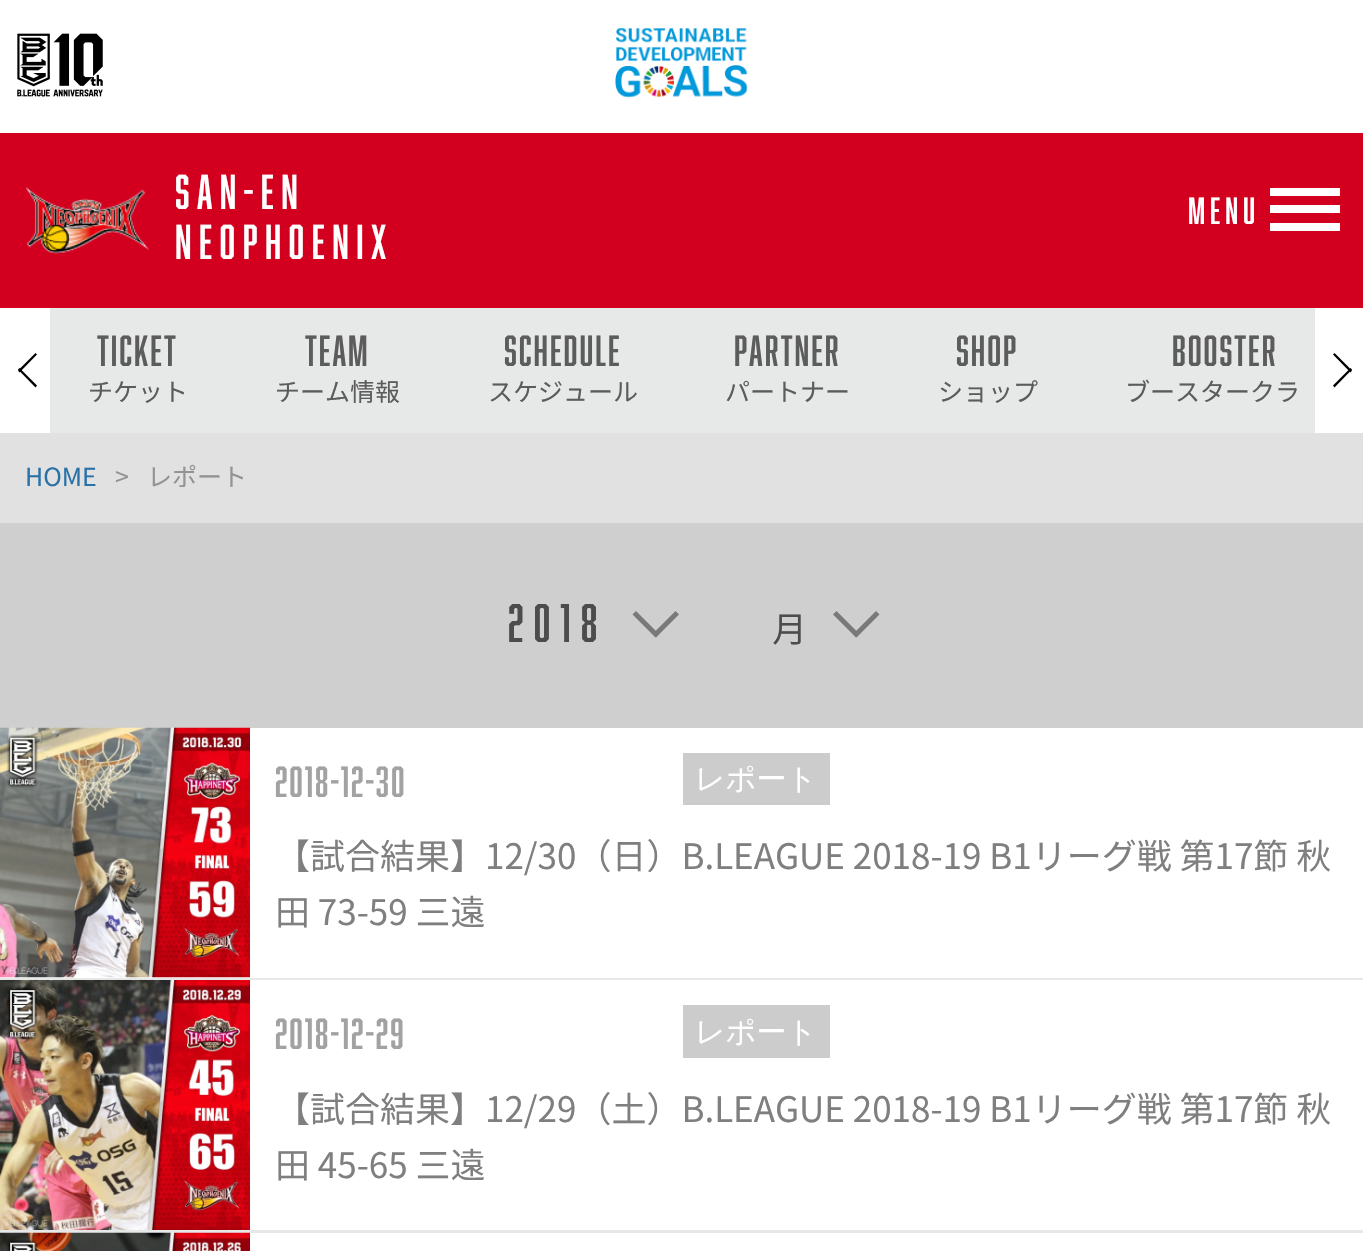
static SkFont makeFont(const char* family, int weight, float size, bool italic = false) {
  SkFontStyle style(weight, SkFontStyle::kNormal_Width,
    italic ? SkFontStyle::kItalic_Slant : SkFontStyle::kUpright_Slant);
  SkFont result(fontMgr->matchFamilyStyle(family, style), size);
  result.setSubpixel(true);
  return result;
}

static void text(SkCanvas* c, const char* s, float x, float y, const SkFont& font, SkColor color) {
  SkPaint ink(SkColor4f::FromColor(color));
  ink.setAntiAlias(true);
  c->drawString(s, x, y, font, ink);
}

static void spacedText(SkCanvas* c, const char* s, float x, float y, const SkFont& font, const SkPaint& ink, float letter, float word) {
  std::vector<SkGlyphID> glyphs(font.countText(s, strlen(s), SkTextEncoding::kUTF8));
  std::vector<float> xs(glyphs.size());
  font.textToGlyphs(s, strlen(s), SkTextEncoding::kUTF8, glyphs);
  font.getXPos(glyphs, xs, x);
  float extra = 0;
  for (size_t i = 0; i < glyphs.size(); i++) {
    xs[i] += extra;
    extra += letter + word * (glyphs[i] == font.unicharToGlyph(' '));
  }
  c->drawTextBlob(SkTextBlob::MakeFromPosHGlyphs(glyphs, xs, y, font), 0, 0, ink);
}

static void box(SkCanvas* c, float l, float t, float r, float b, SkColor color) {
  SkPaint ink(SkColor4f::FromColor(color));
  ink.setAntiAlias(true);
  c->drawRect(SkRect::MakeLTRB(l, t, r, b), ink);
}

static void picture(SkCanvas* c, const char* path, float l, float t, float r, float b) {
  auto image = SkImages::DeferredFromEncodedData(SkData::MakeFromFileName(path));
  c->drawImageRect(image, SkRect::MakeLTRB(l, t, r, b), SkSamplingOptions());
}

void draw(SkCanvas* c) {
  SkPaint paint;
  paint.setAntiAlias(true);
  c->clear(0xffffffff);
  picture(c, "img_01.png", 17, 33, 103, 97);
  picture(c, "img_02.png", 615, 28, 748, 98);
  box(c, 0, 133, 1363, 308, 0xffd2001e);
  picture(c, "img_03.png", 25, 186, 150, 254);
  SkFont face1 = makeFont("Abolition", 400, 45);
  paint.setColor(0xffffffff);
  spacedText(c, "SAN-EN", 175, 209, face1, paint, 7.5f, 0);
  spacedText(c, "NEOPHOENIX", 175, 259, face1, paint, 7.5f, 0);
  SkFont face2 = makeFont("Abolition", 400, 35);
  spacedText(c, "MENU", 1188, 224, face2, paint, 5, 0);
  box(c, 1270, 188, 1340, 196, 0xffffffff);
  box(c, 1270, 205, 1340, 213, 0xffffffff);
  box(c, 1270, 223, 1340, 231, 0xffffffff);
  box(c, 50, 308, 1315, 433, 0xffe7e8e8);
  paint.setColor(0xff000000);
  c->drawPath(SkPathBuilder().moveTo(19.5f, 368).lineTo(37, 385.5f).lineTo(35.5f, 387.5f).lineTo(18, 369.5f).close().detach(), paint);
  c->drawPath(SkPathBuilder().moveTo(18, 370.5f).lineTo(35.5f, 353).lineTo(37, 354.5f).lineTo(19.5f, 372.5f).close().detach(), paint);
  SkFont face3 = makeFont("Abolition", 400, 40);
  paint.setColor(0xff5c5c5c);
  spacedText(c, "TICKET", 97, 366, face3, paint, 2, 0);
  SkFont face4 = makeFont("Noto Sans CJK JP", 400, 25);
  text(c, "チケット", 88, 401, face4, 0xff5c5c5c);
  spacedText(c, "TEAM", 305, 366, face3, paint, 2, 0);
  text(c, "チーム情報", 275, 401, face4, 0xff5c5c5c);
  spacedText(c, "SCHEDULE", 504, 366, face3, paint, 2, 0);
  text(c, "スケジュール", 488, 401, face4, 0xff5c5c5c);
  spacedText(c, "PARTNER", 734, 366, face3, paint, 2, 0);
  text(c, "パートナー", 725, 401, face4, 0xff5c5c5c);
  spacedText(c, "SHOP", 956, 366, face3, paint, 2, 0);
  text(c, "ショップ", 938, 401, face4, 0xff5c5c5c);
  spacedText(c, "BOOSTER", 1172, 366, face3, paint, 2, 0);
  text(c, "ブースタークラ", 1125, 401, face4, 0xff5c5c5c);
  paint.setColor(0xff000000);
  c->drawPath(SkPathBuilder().moveTo(1334.5f, 353).lineTo(1352, 370.5f).lineTo(1350.5f, 372.5f).lineTo(1333, 354.5f).close().detach(), paint);
  c->drawPath(SkPathBuilder().moveTo(1333, 385.5f).lineTo(1350.5f, 368).lineTo(1352, 369.5f).lineTo(1334.5f, 387.5f).close().detach(), paint);
  box(c, 0, 523, 1363, 728, 0xffcfcfcf);
  box(c, 0, 433, 1363, 523, 0xffe1e1e2);
  text(c, "HOME", 25, 486, face4, 0xff2971a7);
  text(c, ">", 115, 486, face4, 0xff939393);
  text(c, "レポート", 147, 486, face4, 0xff939393);
  SkFont face5 = makeFont("Abolition", 400, 50);
  paint.setColor(0xff4c4c4c);
  spacedText(c, "2018", 508, 642, face5, paint, 10, 0);
  paint.setColor(0xff797979);
  c->drawPath(SkPathBuilder().moveTo(636, 611).lineTo(659, 634).lineTo(655.5f, 637.5f).lineTo(632.5f, 614.5f).close().detach(), paint);
  c->drawPath(SkPathBuilder().moveTo(652.5f, 634).lineTo(675.5f, 611).lineTo(679, 614.5f).lineTo(656, 637.5f).close().detach(), paint);
  SkFont face6 = makeFont("Noto Sans CJK JP", 400, 35);
  text(c, "月", 772, 642, face6, 0xff4c4c4c);
  c->drawPath(SkPathBuilder().moveTo(836.5f, 611).lineTo(859.5f, 634).lineTo(856, 637.5f).lineTo(833, 614.5f).close().detach(), paint);
  c->drawPath(SkPathBuilder().moveTo(853, 634).lineTo(876, 611).lineTo(879.5f, 614.5f).lineTo(856.5f, 637.5f).close().detach(), paint);
  box(c, 0, 978, 1363, 980, 0xffe6e7e7);
  picture(c, "img_04.png", 0, 727, 250, 978);
  box(c, 683, 753, 830, 805, 0xffcccccc);
  SkFont face7 = makeFont("WenQuanYi Zen Hei", 500, 30);
  text(c, "レポート", 695, 789, face7, 0xffffffff);
  paint.setColor(0xffa2a2a2);
  spacedText(c, "2018-12-30", 275, 797, face3, paint, 2, 0);
  text(c, "【試合結果】12/30（日）B.LEAGUE 2018-19 B1リーグ戦 第17節 秋", 275, 869, face6, 0xff7f7f7f);
  text(c, "田 73-59 三遠", 275, 925, face6, 0xff7f7f7f);
  box(c, 0, 1230, 1363, 1233, 0xffe6e7e7);
  picture(c, "img_05.png", 0, 980, 250, 1230);
  spacedText(c, "2018-12-29", 275, 1049, face3, paint, 2, 0);
  text(c, "【試合結果】12/29（土）B.LEAGUE 2018-19 B1リーグ戦 第17節 秋", 275, 1122, face6, 0xff7f7f7f);
  text(c, "田 45-65 三遠", 275, 1178, face6, 0xff7f7f7f);
  box(c, 683, 1005, 830, 1058, 0xffcccccc);
  text(c, "レポート", 695, 1042, face7, 0xffffffff);
  picture(c, "img_06.png", 0, 1232, 250, 1251);
}
